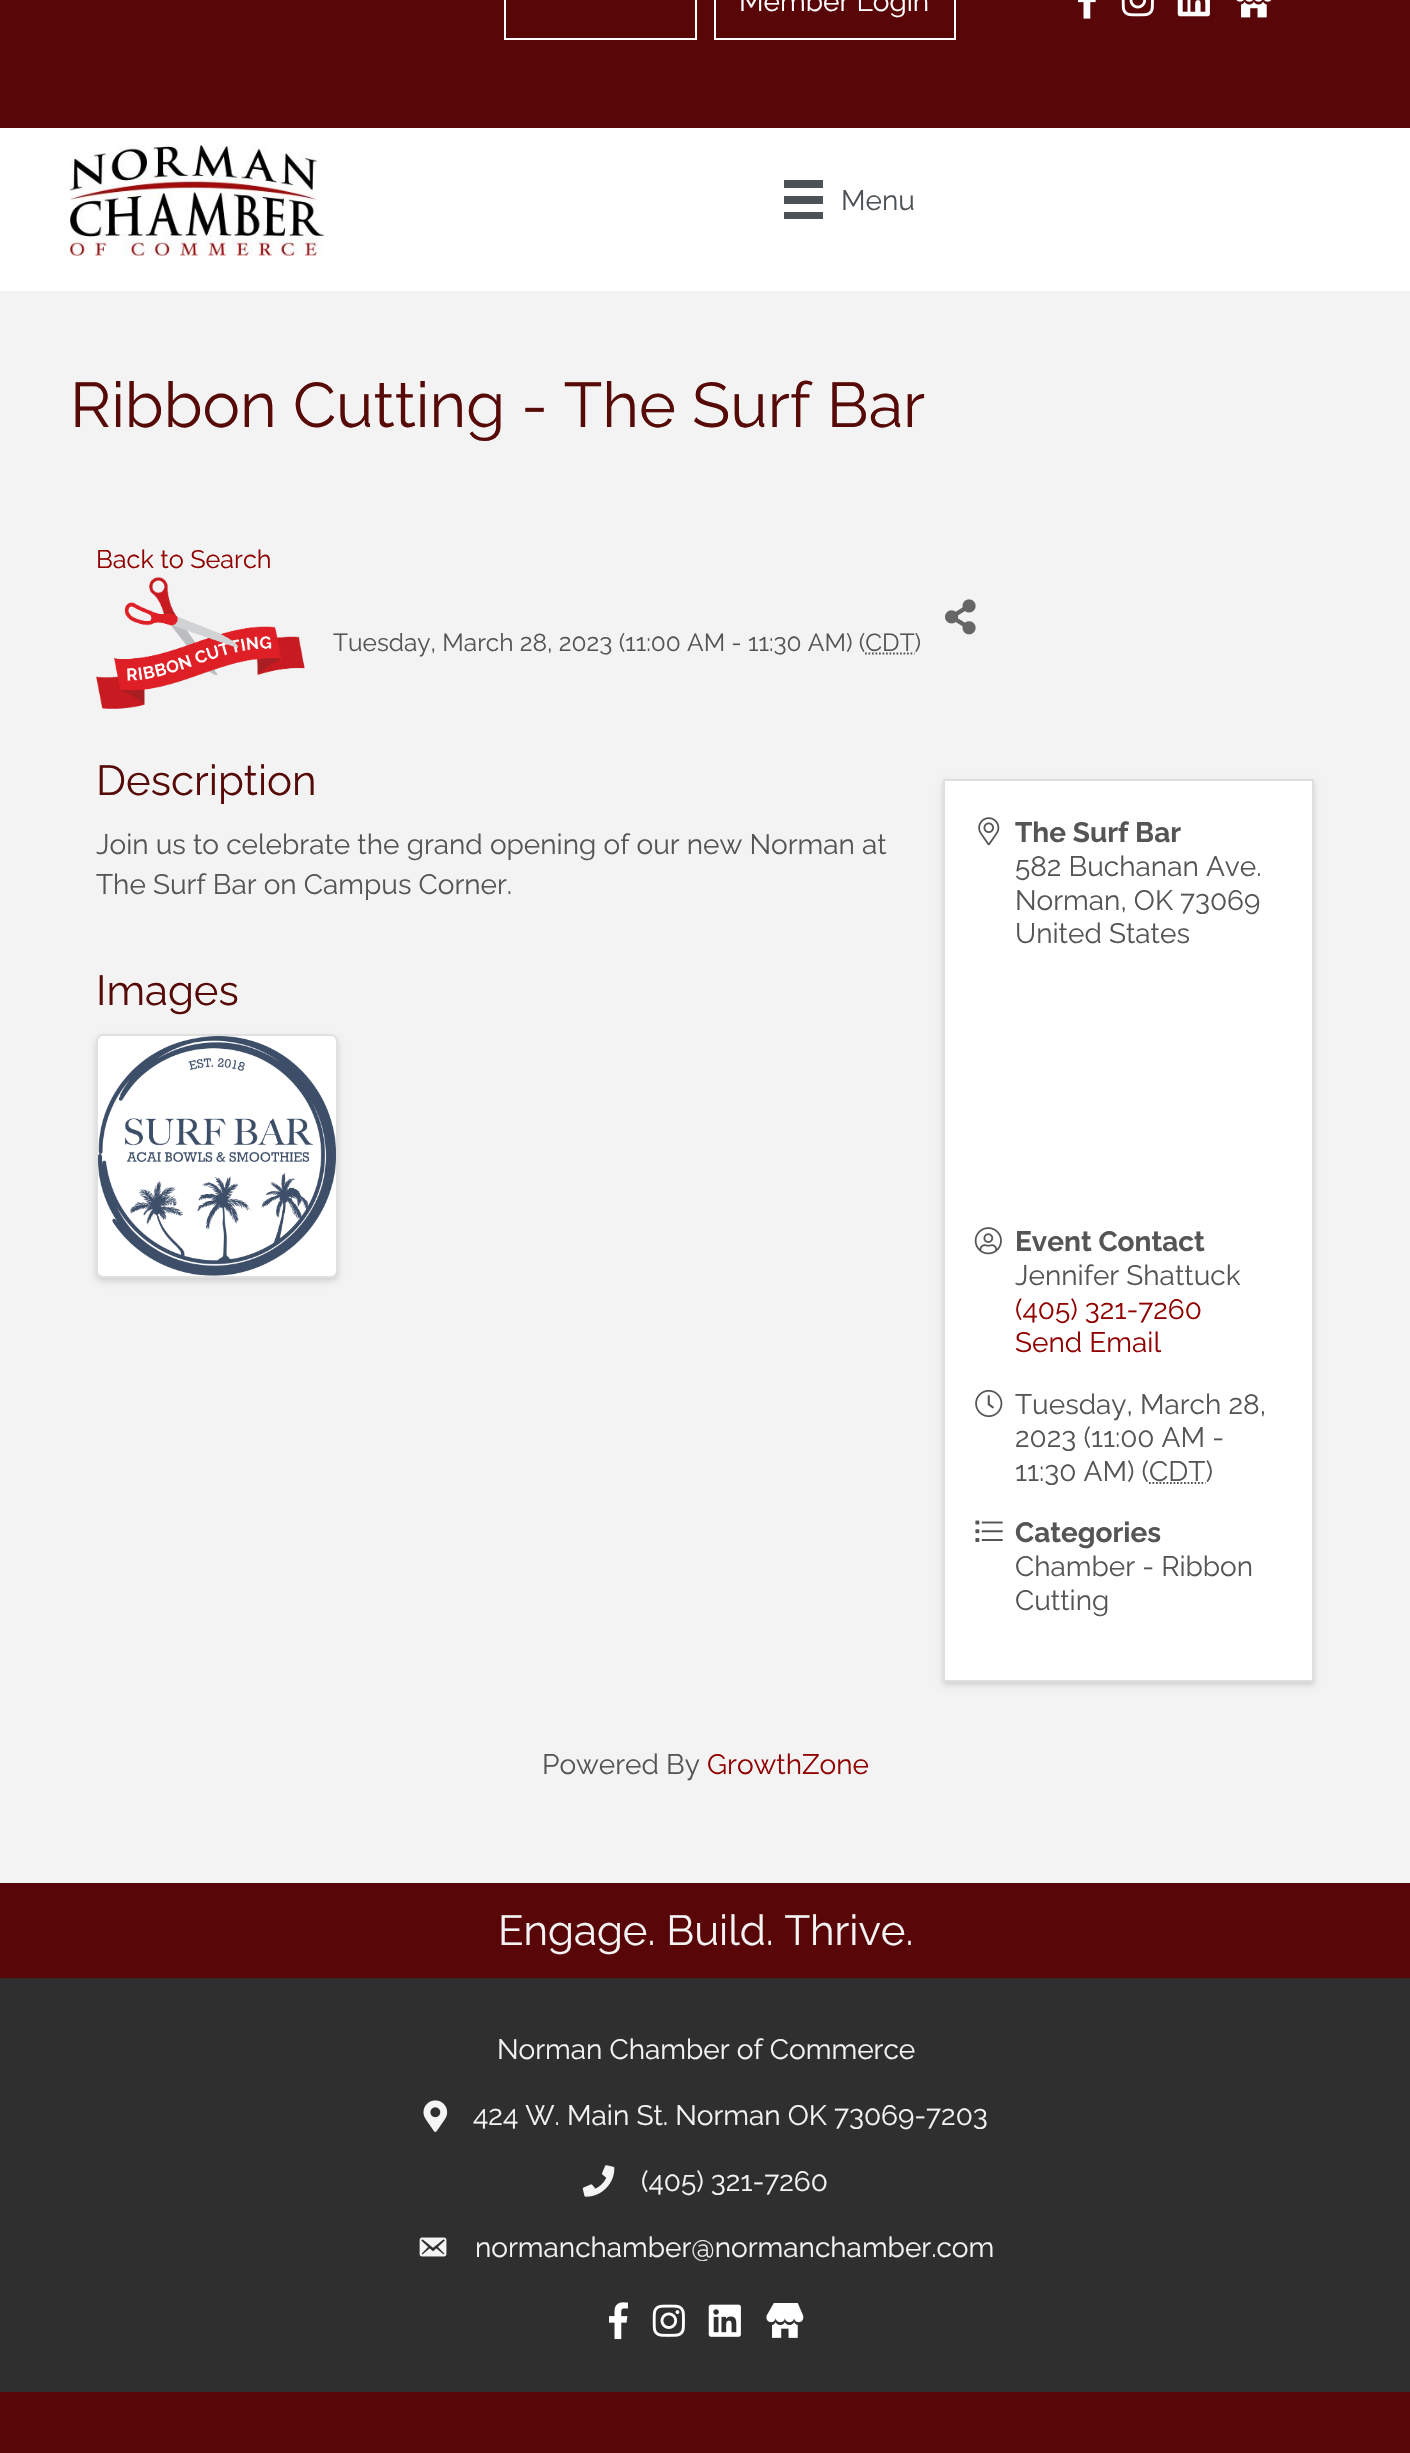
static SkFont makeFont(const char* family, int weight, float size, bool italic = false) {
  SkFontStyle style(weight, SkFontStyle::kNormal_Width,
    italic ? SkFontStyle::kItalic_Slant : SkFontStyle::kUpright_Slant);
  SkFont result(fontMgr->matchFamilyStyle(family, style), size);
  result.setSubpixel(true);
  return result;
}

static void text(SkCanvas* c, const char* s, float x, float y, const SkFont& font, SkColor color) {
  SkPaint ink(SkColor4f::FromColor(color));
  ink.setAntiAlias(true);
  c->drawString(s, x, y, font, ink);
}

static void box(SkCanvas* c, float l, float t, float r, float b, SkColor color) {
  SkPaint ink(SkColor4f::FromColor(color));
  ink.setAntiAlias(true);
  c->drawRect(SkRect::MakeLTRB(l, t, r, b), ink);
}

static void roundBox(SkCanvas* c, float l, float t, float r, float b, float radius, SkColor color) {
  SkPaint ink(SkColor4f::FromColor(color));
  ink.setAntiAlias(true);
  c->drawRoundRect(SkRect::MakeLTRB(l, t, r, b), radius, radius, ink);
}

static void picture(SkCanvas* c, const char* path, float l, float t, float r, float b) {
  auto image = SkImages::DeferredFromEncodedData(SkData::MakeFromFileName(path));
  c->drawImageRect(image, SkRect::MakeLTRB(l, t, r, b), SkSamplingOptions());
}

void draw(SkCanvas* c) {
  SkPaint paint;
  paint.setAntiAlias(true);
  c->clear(0xffffffff);
  box(c, 0, 0, 1410, 128, 0xff580608);
  paint.setStyle(SkPaint::kStroke_Style);
  paint.setStrokeWidth(2);
  paint.setColor(0xffffffff);
  c->drawRect(SkRect::MakeLTRB(505, -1, 696, 39), paint);
  c->drawRect(SkRect::MakeLTRB(715, -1, 955, 39), paint);
  SkFont face1 = makeFont("Raleway", 400, 28);
  text(c, "Member Login", 739, 11, face1, 0xffffffff);
  picture(c, "img_01.png", 1078, 0, 1096, 19);
  picture(c, "img_02.png", 1121, 0, 1154, 17);
  picture(c, "img_03.png", 1177, 0, 1210, 17);
  picture(c, "img_04.png", 1236, 0, 1272, 18);
  picture(c, "img_05.png", 70, 145, 324, 256);
  box(c, 784, 180, 823, 188, 0xff4c5256);
  box(c, 784, 196, 823, 204, 0xff4c5256);
  box(c, 784, 212, 823, 219, 0xff4c5256);
  text(c, "Menu", 841, 210, face1, 0xff4c5256);
  box(c, 0, 291, 1410, 1883, 0xfff3f3f3);
  SkFont face2 = makeFont("Raleway", 400, 63);
  text(c, "Ribbon Cutting - The Surf Bar", 70, 427, face2, 0xff570b08);
  SkFont face3 = makeFont("Raleway", 400, 25.25f);
  text(c, "Back to Search", 96, 568, face3, 0xff910101);
  picture(c, "img_06.png", 96, 577, 305, 709);
  picture(c, "img_07.png", 945, 599, 976, 635);
  SkFont face4 = makeFont("Raleway", 400, 24.5f);
  text(c, "Tuesday, March 28, 2023 (11:00 AM - 11:30 AM) (CDT)", 333, 651, face4, 0xff555555);
  paint.setStrokeWidth(1.8f);
  paint.setColor(0xff555555);
  paint.setPathEffect(SkDashPathEffect::Make({{1.75f, 1.75f}}, 0));
  c->drawPath(SkPathBuilder().moveTo(865, 653.5f).lineTo(914.5f, 653.5f).detach(), paint);
  paint.setPathEffect(nullptr);
  SkFont face5 = makeFont("Raleway", 400, 42);
  text(c, "Description", 96, 795, face5, 0xff570b08);
  text(c, "Join us to celebrate the grand opening of our new Norman at", 96, 854, face1, 0xff555555);
  text(c, "The Surf Bar on Campus Corner.", 96, 894, face1, 0xff555555);
  text(c, "Images", 96, 1005, face5, 0xff570b08);
  paint.setStyle(SkPaint::kFill_Style);
  paint.setColor(0x26000000);
  paint.setMaskFilter(SkMaskFilter::MakeBlur(kNormal_SkBlurStyle, 3));
  c->drawRoundRect(SkRect::MakeLTRB(96, 1038, 338, 1281), 7, 7, paint);
  paint.setMaskFilter(nullptr);
  roundBox(c, 96, 1034, 338, 1278, 7, 0xffffffff);
  paint.setStyle(SkPaint::kStroke_Style);
  paint.setStrokeWidth(2);
  paint.setColor(0x1f000000);
  c->drawRoundRect(SkRect::MakeLTRB(97, 1035, 337, 1277), 6, 6, paint);
  picture(c, "img_08.png", 98, 1036, 336, 1276);
  paint.setStyle(SkPaint::kFill_Style);
  paint.setColor(0x26000000);
  paint.setMaskFilter(SkMaskFilter::MakeBlur(kNormal_SkBlurStyle, 3));
  c->drawRect(SkRect::MakeLTRB(943, 782, 1314, 1685), paint);
  paint.setMaskFilter(nullptr);
  paint.setColor(0xffffffff);
  c->drawRect(SkRect::MakeLTRB(944, 780, 1313, 1681), paint);
  paint.setStyle(SkPaint::kStroke_Style);
  paint.setColor(0xffdfdfdf);
  c->drawRect(SkRect::MakeLTRB(944, 780, 1313, 1681), paint);
  picture(c, "img_09.png", 978, 817, 1000, 846);
  SkFont face6 = makeFont("Raleway", 700, 28);
  text(c, "The Surf Bar", 1015, 842, face6, 0xff555555);
  text(c, "582 Buchanan Ave.", 1015, 876, face1, 0xff555555);
  text(c, "Norman, OK 73069", 1015, 910, face1, 0xff555555);
  text(c, "United States", 1015, 943, face1, 0xff555555);
  picture(c, "img_10.png", 974, 1227, 1002, 1255);
  text(c, "Event Contact", 1015, 1251, face6, 0xff555555);
  text(c, "Jennifer Shattuck", 1015, 1285, face1, 0xff555555);
  text(c, "(405) 321-7260", 1015, 1319, face1, 0xff910101);
  text(c, "Send Email", 1015, 1352, face1, 0xff910101);
  picture(c, "img_11.png", 975, 1389, 1003, 1418);
  text(c, "Tuesday, March 28,", 1015, 1414, face1, 0xff555555);
  text(c, "2023 (11:00 AM -", 1015, 1447, face1, 0xff555555);
  text(c, "11:30 AM) (CDT)", 1015, 1481, face1, 0xff555555);
  paint.setStrokeWidth(1.8f);
  paint.setColor(0xff555555);
  paint.setPathEffect(SkDashPathEffect::Make({{1.75f, 1.75f}}, 0));
  c->drawPath(SkPathBuilder().moveTo(1149, 1483).lineTo(1205.5f, 1483).detach(), paint);
  paint.setPathEffect(nullptr);
  picture(c, "img_12.png", 975, 1520, 1003, 1542);
  text(c, "Categories", 1015, 1542, face6, 0xff555555);
  text(c, "Chamber - Ribbon", 1015, 1576, face1, 0xff555555);
  text(c, "Cutting", 1015, 1610, face1, 0xff555555);
  text(c, "Powered By", 542, 1774, face1, 0xff555555);
  text(c, "GrowthZone", 707, 1774, face1, 0xff910101);
  box(c, 0, 1883, 1410, 1978, 0xff580608);
  text(c, "Engage. Build. Thrive.", 498, 1945, face5, 0xfff3f3f3);
  box(c, 0, 1978, 1410, 2392, 0xff2f2f2f);
  text(c, "Norman Chamber of Commerce", 497, 2059, face1, 0xfff3f3f3);
  picture(c, "img_13.png", 423, 2100, 448, 2132);
  text(c, "424 W. Main St. Norman OK 73069-7203", 473, 2125, face1, 0xfff3f3f3);
  picture(c, "img_14.png", 582, 2165, 615, 2197);
  text(c, "(405) 321-7260", 641, 2191, face1, 0xfff3f3f3);
  picture(c, "img_15.png", 419, 2237, 447, 2257);
  text(c, "normanchamber@normanchamber.com", 475, 2257, face1, 0xfff3f3f3);
  picture(c, "img_16.png", 609, 2302, 628, 2340);
  picture(c, "img_17.png", 652, 2304, 685, 2337);
  picture(c, "img_18.png", 708, 2304, 741, 2337);
  picture(c, "img_19.png", 766, 2303, 804, 2338);
  box(c, 0, 2392, 1410, 2453, 0xff580608);
}
